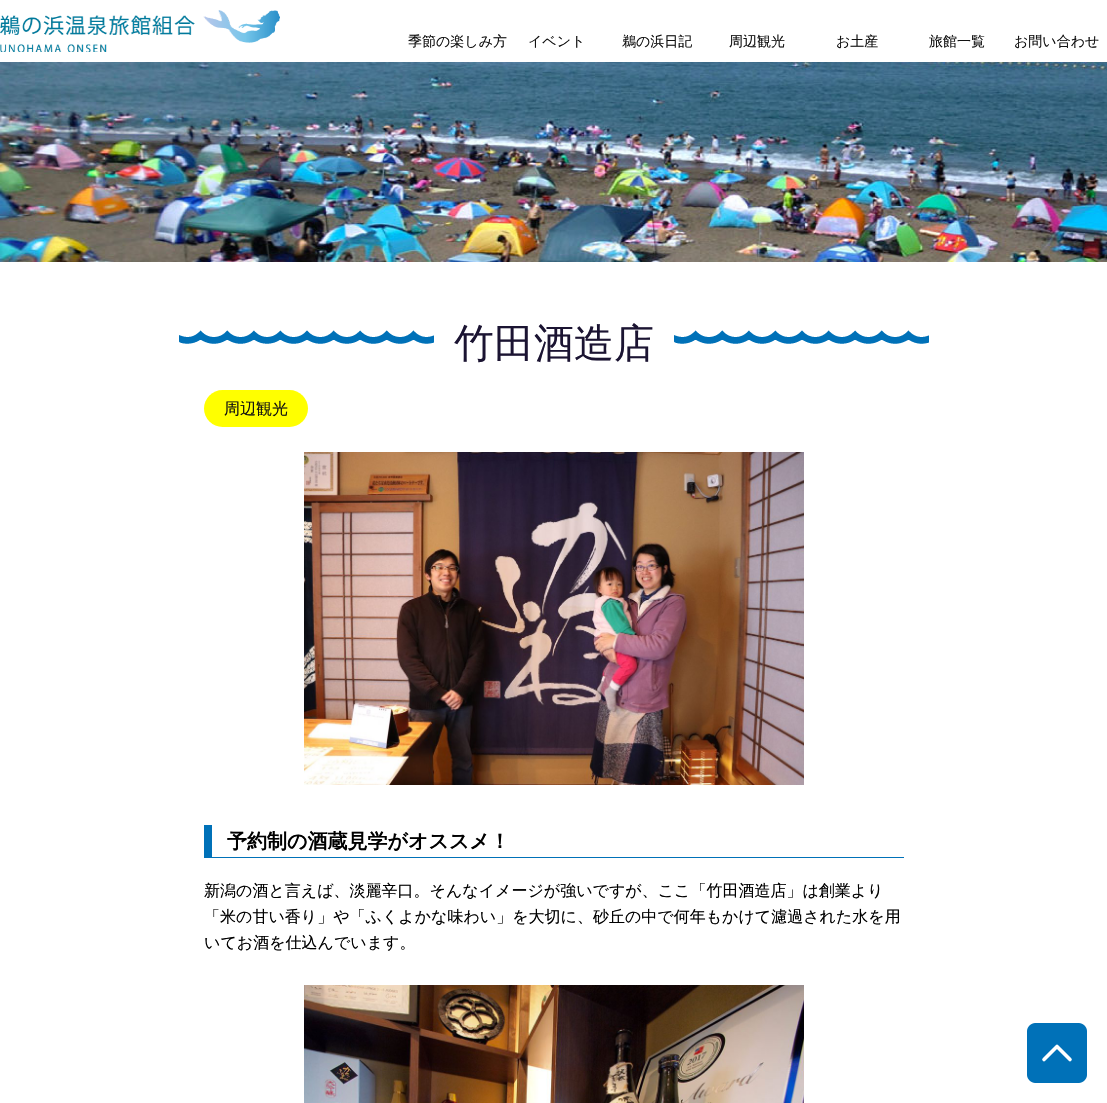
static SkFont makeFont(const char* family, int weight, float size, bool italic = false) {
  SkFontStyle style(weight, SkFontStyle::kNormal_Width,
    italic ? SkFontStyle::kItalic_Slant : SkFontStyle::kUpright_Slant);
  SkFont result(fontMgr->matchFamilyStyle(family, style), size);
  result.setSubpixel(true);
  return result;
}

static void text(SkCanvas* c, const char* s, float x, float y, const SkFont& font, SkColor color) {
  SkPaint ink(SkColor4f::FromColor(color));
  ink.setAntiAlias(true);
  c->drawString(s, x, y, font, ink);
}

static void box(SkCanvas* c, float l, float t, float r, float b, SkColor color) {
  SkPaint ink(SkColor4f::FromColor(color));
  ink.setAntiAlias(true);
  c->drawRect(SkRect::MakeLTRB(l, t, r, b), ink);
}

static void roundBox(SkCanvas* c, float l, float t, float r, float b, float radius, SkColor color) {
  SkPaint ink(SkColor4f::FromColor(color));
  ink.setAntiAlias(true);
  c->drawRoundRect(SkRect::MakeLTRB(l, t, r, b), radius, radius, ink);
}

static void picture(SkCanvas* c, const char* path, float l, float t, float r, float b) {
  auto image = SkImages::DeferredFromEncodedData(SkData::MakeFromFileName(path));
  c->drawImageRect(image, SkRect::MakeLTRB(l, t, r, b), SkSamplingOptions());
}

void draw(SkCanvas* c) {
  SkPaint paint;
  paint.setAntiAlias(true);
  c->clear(0xffffffff);
  picture(c, "img_01.png", 0, 10, 280, 52);
  SkFont face1 = makeFont("WenQuanYi Zen Hei", 500, 14);
  text(c, "季節の楽しみ方", 408, 46, face1, 0xff111111);
  text(c, "イベント", 528, 46, face1, 0xff111111);
  text(c, "鵜の浜日記", 622, 46, face1, 0xff111111);
  text(c, "周辺観光", 729, 46, face1, 0xff111111);
  text(c, "お土産", 836, 46, face1, 0xff111111);
  text(c, "旅館一覧", 929, 46, face1, 0xff111111);
  text(c, "お問い合わせ", 1014, 46, face1, 0xff111111);
  picture(c, "img_02.png", 0, 62, 1107, 262);
  picture(c, "img_03.png", 179, 330, 434, 344);
  SkFont face2 = makeFont("WenQuanYi Zen Hei", 500, 40);
  text(c, "竹田酒造店", 454, 357, face2, 0xff1b1432);
  picture(c, "img_03.png", 674, 330, 929, 344);
  roundBox(c, 204, 390, 308, 427, 18.5f, 0xffffff00);
  SkFont face3 = makeFont("WenQuanYi Zen Hei", 500, 16);
  text(c, "周辺観光", 224, 414, face3, 0xff111111);
  picture(c, "img_04.png", 304, 452, 804, 785);
  box(c, 204, 857, 904, 858, 0xff0071b8);
  box(c, 204, 825, 212, 858, 0xff0071b8);
  SkFont face4 = makeFont("WenQuanYi Zen Hei", 700, 20);
  text(c, "予約制の酒蔵見学がオススメ！", 227, 848, face4, 0xff000000);
  text(c, "新潟の酒と言えば、淡麗辛口。そんなイメージが強いですが、ここ「竹田酒造店」は創業より", 204, 896, face3, 0xff000000);
  text(c, "「米の甘い香り」や「ふくよかな味わい」を大切に、砂丘の中で何年もかけて濾過された水を用", 204, 922, face3, 0xff000000);
  text(c, "いてお酒を仕込んでいます。", 204, 948, face3, 0xff000000);
  picture(c, "img_05.png", 304, 985, 804, 1103);
  paint.setColor(0xff0071b8);
  c->drawPath(SkPathBuilder().moveTo(1079, 1083).lineTo(1035, 1083).cubicTo(1031, 1083, 1027, 1079, 1027, 1075).lineTo(1027, 1031).cubicTo(1027, 1027, 1031, 1023, 1035, 1023).lineTo(1079, 1023).cubicTo(1083, 1023, 1087, 1027, 1087, 1031).lineTo(1087, 1075).cubicTo(1087, 1079, 1083, 1083, 1079, 1083).close().detach(), paint);
  paint.setStyle(SkPaint::kStroke_Style);
  paint.setStrokeWidth(3.6f);
  paint.setStrokeCap(SkPaint::kRound_Cap);
  paint.setStrokeJoin(SkPaint::kRound_Join);
  paint.setColor(0xffffffff);
  c->drawPath(SkPathBuilder().moveTo(1044, 1059.5f).lineTo(1057, 1046.5f).lineTo(1070, 1059.5f).detach(), paint);
}
